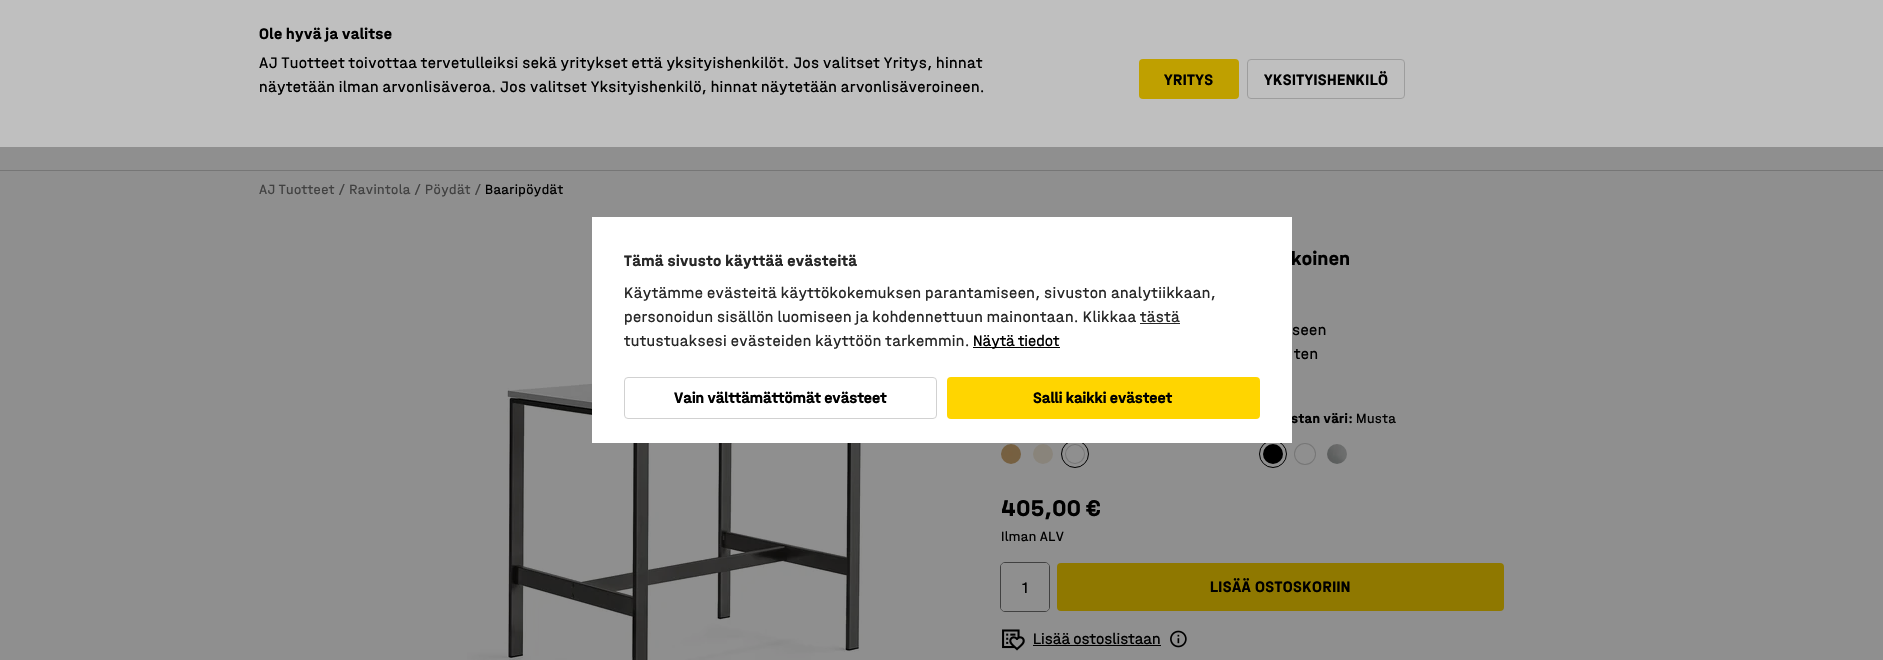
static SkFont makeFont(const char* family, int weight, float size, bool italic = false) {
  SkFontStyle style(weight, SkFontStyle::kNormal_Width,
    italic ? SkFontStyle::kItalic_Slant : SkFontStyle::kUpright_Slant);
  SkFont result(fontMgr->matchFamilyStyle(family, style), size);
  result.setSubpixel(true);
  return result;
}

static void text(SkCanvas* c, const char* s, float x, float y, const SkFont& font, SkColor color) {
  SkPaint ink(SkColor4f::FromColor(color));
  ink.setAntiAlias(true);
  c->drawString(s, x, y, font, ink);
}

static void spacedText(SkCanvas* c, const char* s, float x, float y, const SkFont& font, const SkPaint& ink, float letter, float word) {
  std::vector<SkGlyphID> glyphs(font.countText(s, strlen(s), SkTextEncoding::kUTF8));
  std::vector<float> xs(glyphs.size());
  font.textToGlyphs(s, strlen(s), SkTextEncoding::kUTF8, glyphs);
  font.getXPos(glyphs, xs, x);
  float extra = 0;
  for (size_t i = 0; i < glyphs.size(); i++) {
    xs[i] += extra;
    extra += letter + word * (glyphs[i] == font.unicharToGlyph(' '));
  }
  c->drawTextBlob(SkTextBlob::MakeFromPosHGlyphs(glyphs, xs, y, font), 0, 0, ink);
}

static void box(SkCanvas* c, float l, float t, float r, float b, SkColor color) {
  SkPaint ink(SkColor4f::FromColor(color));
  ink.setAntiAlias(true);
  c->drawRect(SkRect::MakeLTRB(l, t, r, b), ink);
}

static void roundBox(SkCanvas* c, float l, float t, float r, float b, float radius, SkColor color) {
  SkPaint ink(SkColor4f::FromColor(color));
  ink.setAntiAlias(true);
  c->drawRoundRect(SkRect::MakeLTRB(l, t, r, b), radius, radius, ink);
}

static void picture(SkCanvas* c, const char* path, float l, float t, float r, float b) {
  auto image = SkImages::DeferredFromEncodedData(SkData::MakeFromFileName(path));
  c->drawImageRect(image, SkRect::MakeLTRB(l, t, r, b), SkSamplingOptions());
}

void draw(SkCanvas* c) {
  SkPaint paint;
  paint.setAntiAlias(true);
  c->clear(0xff8f8f8f);
  box(c, 0, 0, 1883, 147, 0xffbfbfbf);
  SkFont face1 = makeFont("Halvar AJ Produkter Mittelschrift", 700, 16);
  paint.setColor(0xff000000);
  spacedText(c, "Ole hyvä ja valitse", 259, 39, face1, paint, 0.4f, 0);
  SkFont face2 = makeFont("Halvar AJ Produkter Mittelschrift", 400, 16);
  spacedText(c, "AJ Tuotteet toivottaa tervetulleiksi sekä yritykset että yksityishenkilöt. Jos valitset Yritys, hinnat", 259, 68, face2, paint, 0.4f, 0);
  spacedText(c, "näytetään ilman arvonlisäveroa. Jos valitset Yksityishenkilö, hinnat näytetään arvonlisäveroineen.", 259, 92, face2, paint, 0.4f, 0);
  roundBox(c, 1139, 59, 1239, 99, 4, 0xffbfa000);
  spacedText(c, "YRITYS", 1164, 85, face1, paint, 0.4f, 0);
  paint.setStyle(SkPaint::kStroke_Style);
  paint.setStrokeWidth(1);
  paint.setColor(0xff9d9d9d);
  c->drawRoundRect(SkRect::MakeLTRB(1247.5f, 59.5f, 1404.5f, 98.5f), 3.5f, 3.5f, paint);
  paint.setStyle(SkPaint::kFill_Style);
  paint.setColor(0xff000000);
  spacedText(c, "YKSITYISHENKILÖ", 1264, 85, face1, paint, 0.4f, 0);
  box(c, 0, 170, 1883, 171, 0xff767676);
  SkFont face3 = makeFont("Halvar AJ Produkter Mittelschrift", 400, 14);
  paint.setColor(0xff414141);
  spacedText(c, "AJ Tuotteet / Ravintola / Pöydät /", 259, 194, face3, paint, 0.4f, 0);
  paint.setColor(0xff000000);
  spacedText(c, "Baaripöydät", 485, 194, face3, paint, 0.4f, 0);
  picture(c, "img_01.png", 467, 372, 863, 660);
  SkFont face4 = makeFont("Halvar AJ Produkter Mittelschrift", 700, 20);
  spacedText(c, "koinen", 1291, 265, face4, paint, 0.4f, -1);
  spacedText(c, "seen", 1292, 335, face2, paint, 0.4f, 0);
  spacedText(c, "ten", 1294, 359, face2, paint, 0.4f, 0);
  SkFont face5 = makeFont("Halvar AJ Produkter Mittelschrift", 700, 14);
  spacedText(c, "stan väri:", 1291, 423, face5, paint, 0.4f, 0);
  spacedText(c, "Musta", 1356, 423, face3, paint, 0.4f, 0);
  paint.setStyle(SkPaint::kStroke_Style);
  c->drawCircle(1273, 454, 13.5f, paint);
  picture(c, "img_02.png", 1263, 444, 1283, 464);
  paint.setStyle(SkPaint::kFill_Style);
  paint.setColor(0xff767676);
  c->drawCircle(1305, 454, 11, paint);
  picture(c, "img_03.png", 1295, 444, 1315, 464);
  picture(c, "img_04.png", 1327, 444, 1347, 464);
  picture(c, "img_05.png", 1001, 444, 1021, 464);
  picture(c, "img_06.png", 1033, 444, 1053, 464);
  paint.setStyle(SkPaint::kStroke_Style);
  paint.setColor(0xff000000);
  c->drawCircle(1075, 454, 13.5f, paint);
  paint.setStyle(SkPaint::kFill_Style);
  paint.setColor(0xff767676);
  c->drawCircle(1075, 454, 10, paint);
  picture(c, "img_07.png", 1066, 445, 1084, 463);
  SkFont face6 = makeFont("Halvar AJ Produkter Mittelschrift", 700, 24);
  paint.setColor(0xff000000);
  spacedText(c, "405,00 €", 1001, 516, face6, paint, 0.4f, 0);
  spacedText(c, "Ilman ALV", 1001, 541, face3, paint, 0.4f, 0);
  paint.setStyle(SkPaint::kStroke_Style);
  paint.setColor(0xff414141);
  c->drawRoundRect(SkRect::MakeLTRB(1000.5f, 562.5f, 1049.5f, 611.5f), 4.5f, 4.5f, paint);
  roundBox(c, 1001, 563, 1049, 611, 4, 0xff8f8f8f);
  text(c, "1", 1022, 593, face2, 0xff000000);
  roundBox(c, 1057, 563, 1504, 611, 4, 0xff8f7800);
  paint.setStyle(SkPaint::kFill_Style);
  paint.setColor(0xff000000);
  spacedText(c, "LISÄÄ OSTOSKORIIN", 1210, 592, face1, paint, 0.4f, 0);
  picture(c, "img_08.png", 1002, 629, 1025, 651);
  text(c, "Lisää ostoslistaan", 1033, 644, face2, 0xff000000);
  box(c, 1033, 645, 1161, 646, 0xff000000);
  picture(c, "img_09.png", 1170, 630, 1187, 648);
  box(c, 592, 217, 1292, 443, 0xffffffff);
  paint.setColor(0xff272727);
  spacedText(c, "Tämä sivusto käyttää evästeitä", 624, 266, face1, paint, 0.4f, 0);
  spacedText(c, "Käytämme evästeitä käyttökokemuksen parantamiseen, sivuston analytiikkaan,", 624, 298, face2, paint, 0.4f, 0);
  spacedText(c, "personoidun sisällön luomiseen ja kohdennettuun mainontaan. Klikkaa tästä", 624, 322, face2, paint, 0.4f, 0);
  box(c, 1140, 323, 1180, 324, 0xff272727);
  spacedText(c, "tutustuaksesi evästeiden käyttöön tarkemmin.", 624, 346, face2, paint, 0.4f, 0);
  box(c, 973, 347, 1060, 348, 0xff000000);
  text(c, "Näytä tiedot", 973, 346, face2, 0xff000000);
  paint.setStyle(SkPaint::kStroke_Style);
  paint.setColor(0xffd1d1d1);
  c->drawRoundRect(SkRect::MakeLTRB(624.5f, 377.5f, 936.5f, 418.5f), 3.5f, 3.5f, paint);
  text(c, "Vain välttämättömät evästeet", 674, 403, face1, 0xff000000);
  roundBox(c, 947, 377, 1260, 419, 4, 0xffffd500);
  text(c, "Salli kaikki evästeet", 1033, 403, face1, 0xff000000);
}
